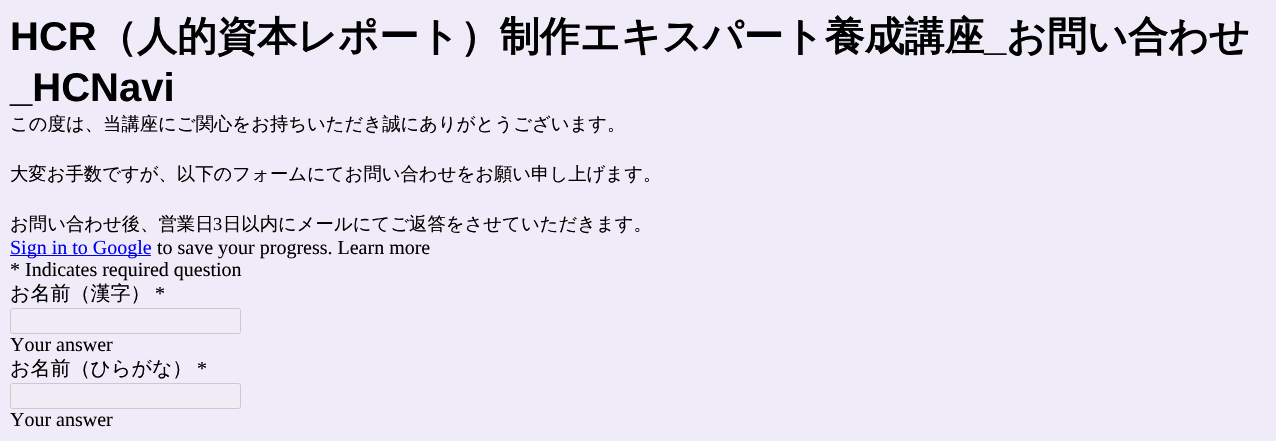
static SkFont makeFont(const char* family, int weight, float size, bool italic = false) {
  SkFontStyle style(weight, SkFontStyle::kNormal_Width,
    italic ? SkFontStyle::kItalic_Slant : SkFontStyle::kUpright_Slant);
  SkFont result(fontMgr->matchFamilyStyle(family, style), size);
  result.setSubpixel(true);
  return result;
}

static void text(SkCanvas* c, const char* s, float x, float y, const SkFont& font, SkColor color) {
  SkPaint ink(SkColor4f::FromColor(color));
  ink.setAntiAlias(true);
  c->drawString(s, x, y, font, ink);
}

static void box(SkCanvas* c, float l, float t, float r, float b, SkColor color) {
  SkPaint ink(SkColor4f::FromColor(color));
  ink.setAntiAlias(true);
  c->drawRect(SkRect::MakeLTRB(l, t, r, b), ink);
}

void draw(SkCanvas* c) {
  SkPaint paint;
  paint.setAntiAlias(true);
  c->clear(0xfff0ebf8);
  SkFont face1 = makeFont("Liberation Sans", 700, 40);
  text(c, "HCR", 10, 50, face1, 0xff000000);
  SkFont face2 = makeFont("WenQuanYi Zen Hei", 700, 40);
  text(c, "（人的資本レポート）制作エキスパート養成講座", 97, 50, face2, 0xff000000);
  text(c, "お問い合わせ", 1006, 50, face2, 0xff000000);
  text(c, "_", 984, 50, face1, 0xff000000);
  text(c, "_HCNavi", 10, 101, face1, 0xff000000);
  SkFont face3 = makeFont("WenQuanYi Zen Hei", 500, 18.35f);
  text(c, "この度は、当講座にご関心をお持ちいただき誠にありがとうございます。", 10, 130, face3, 0xff000000);
  text(c, "大変お手数ですが、以下のフォームにてお問い合わせをお願い申し上げます。", 10, 180, face3, 0xff000000);
  text(c, "お問い合わせ後、営業日", 10, 230, face3, 0xff000000);
  SkFont face4 = makeFont("Liberation Serif", 400, 18.35f);
  text(c, "3", 213, 230, face4, 0xff000000);
  text(c, "日以内にメールにてご返答をさせていただきます。", 223, 230, face3, 0xff000000);
  box(c, 10, 255, 151, 256, 0xff0000ee);
  SkFont face5 = makeFont("Liberation Serif", 400, 20);
  text(c, "Sign in to Google", 10, 254, face5, 0xff0000ee);
  text(c, "to save your progress. Learn more", 157, 254, face5, 0xff000000);
  text(c, "* Indicates required question", 10, 276, face5, 0xff000000);
  SkFont face6 = makeFont("WenQuanYi Zen Hei", 500, 20);
  text(c, "お名前（漢字）", 10, 300, face6, 0xff000000);
  text(c, "*", 155, 300, face5, 0xff000000);
  paint.setColor(0xfff0ecf5);
  c->drawRoundRect(SkRect::MakeLTRB(10.5f, 308.5f, 240.5f, 333.5f), 2, 2, paint);
  paint.setStyle(SkPaint::kStroke_Style);
  paint.setStrokeWidth(1);
  paint.setColor(0xffcbc9cf);
  c->drawRoundRect(SkRect::MakeLTRB(10.5f, 308.5f, 240.5f, 333.5f), 2, 2, paint);
  text(c, "Your answer", 10, 351, face5, 0xff000000);
  text(c, "お名前（ひらがな）", 10, 375, face6, 0xff000000);
  text(c, "*", 197, 375, face5, 0xff000000);
  paint.setStyle(SkPaint::kFill_Style);
  paint.setColor(0xfff0ecf5);
  c->drawRoundRect(SkRect::MakeLTRB(10.5f, 383.5f, 240.5f, 408.5f), 2, 2, paint);
  paint.setStyle(SkPaint::kStroke_Style);
  paint.setColor(0xffcbc9cf);
  c->drawRoundRect(SkRect::MakeLTRB(10.5f, 383.5f, 240.5f, 408.5f), 2, 2, paint);
  text(c, "Your answer", 10, 426, face5, 0xff000000);
}
